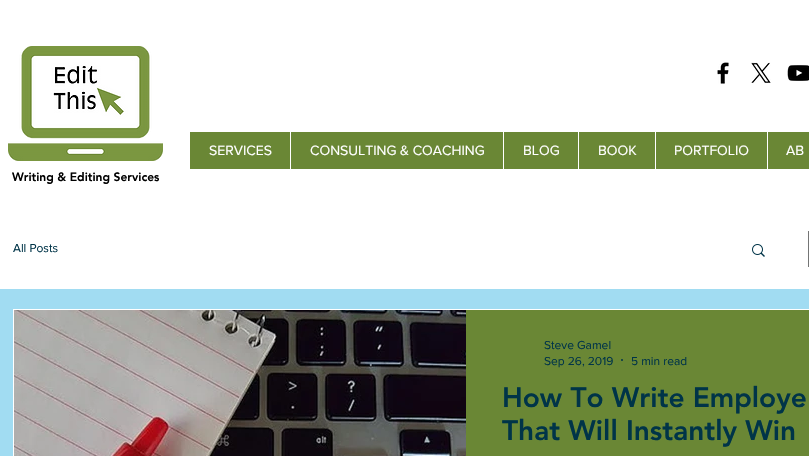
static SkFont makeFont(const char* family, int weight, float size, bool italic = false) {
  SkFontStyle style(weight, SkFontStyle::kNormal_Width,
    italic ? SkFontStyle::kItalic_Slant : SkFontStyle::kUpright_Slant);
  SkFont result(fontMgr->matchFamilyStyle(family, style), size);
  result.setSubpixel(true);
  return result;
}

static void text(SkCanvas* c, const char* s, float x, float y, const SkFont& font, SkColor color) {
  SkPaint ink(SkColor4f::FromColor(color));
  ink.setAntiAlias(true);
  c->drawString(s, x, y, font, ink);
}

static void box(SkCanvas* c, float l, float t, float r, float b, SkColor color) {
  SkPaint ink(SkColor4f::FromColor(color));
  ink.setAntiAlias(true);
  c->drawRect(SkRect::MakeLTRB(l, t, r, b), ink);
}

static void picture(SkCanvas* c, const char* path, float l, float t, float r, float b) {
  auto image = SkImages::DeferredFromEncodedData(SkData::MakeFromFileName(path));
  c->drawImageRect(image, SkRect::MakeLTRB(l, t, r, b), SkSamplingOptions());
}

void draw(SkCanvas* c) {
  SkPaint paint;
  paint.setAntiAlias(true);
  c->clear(0xffffffff);
  picture(c, "img_01.png", 8, 46, 163, 161);
  picture(c, "img_02.png", 717, 62, 729, 84);
  picture(c, "img_03.png", 751, 62, 771, 83);
  picture(c, "img_04.png", 787, 65, 809, 81);
  box(c, 190, 132, 809, 169, 0xff6a8735);
  SkFont face1 = makeFont("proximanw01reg", 400, 14);
  text(c, "SERVICES", 209, 155, face1, 0xffffffff);
  box(c, 290, 132, 291, 169, 0xffffffff);
  text(c, "CONSULTING & COACHING", 310, 155, face1, 0xffffffff);
  box(c, 503, 132, 504, 169, 0xffffffff);
  text(c, "BLOG", 523, 155, face1, 0xffffffff);
  box(c, 578, 132, 579, 169, 0xffffffff);
  text(c, "BOOK", 598, 155, face1, 0xffffffff);
  box(c, 655, 132, 656, 169, 0xffffffff);
  text(c, "PORTFOLIO", 674, 155, face1, 0xffffffff);
  box(c, 767, 132, 768, 169, 0xffffffff);
  text(c, "AB", 786, 155, face1, 0xffffffff);
  SkFont face2 = makeFont("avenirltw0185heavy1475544", 900, 12);
  text(c, "Writing & Editing Services", 12, 181, face2, 0xff000000);
  box(c, 0, 289, 809, 456, 0xffa1dcf2);
  SkFont face3 = makeFont("proximanw01reg", 400, 12);
  text(c, "All Posts", 13, 252, face3, 0xff003448);
  picture(c, "img_05.png", 752, 244, 765, 257);
  paint.setStyle(SkPaint::kStroke_Style);
  paint.setStrokeWidth(1);
  paint.setColor(0xff747575);
  c->drawRect(SkRect::MakeLTRB(808.5f, 231.5f, 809.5f, 266.5f), paint);
  paint.setColor(0xffffffff);
  c->drawRect(SkRect::MakeLTRB(13.5f, 309.5f, 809.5f, 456.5f), paint);
  picture(c, "img_06.png", 14, 310, 466, 456);
  box(c, 466, 310, 809, 456, 0xff6a8735);
  text(c, "Steve Gamel", 544, 349, face3, 0xff003448);
  text(c, "Sep 26, 2019", 544, 365, face3, 0xff003448);
  paint.setStyle(SkPaint::kFill_Style);
  paint.setColor(0xff003448);
  c->drawCircle(622, 360, 1, paint);
  text(c, "5 min read", 631, 365, face3, 0xff003448);
  SkFont face4 = makeFont("avenirltw0185heavy1475544", 900, 28);
  text(c, "How To Write Employe", 502, 407, face4, 0xff003448);
  text(c, "That Will Instantly Win", 502, 440, face4, 0xff003448);
}
